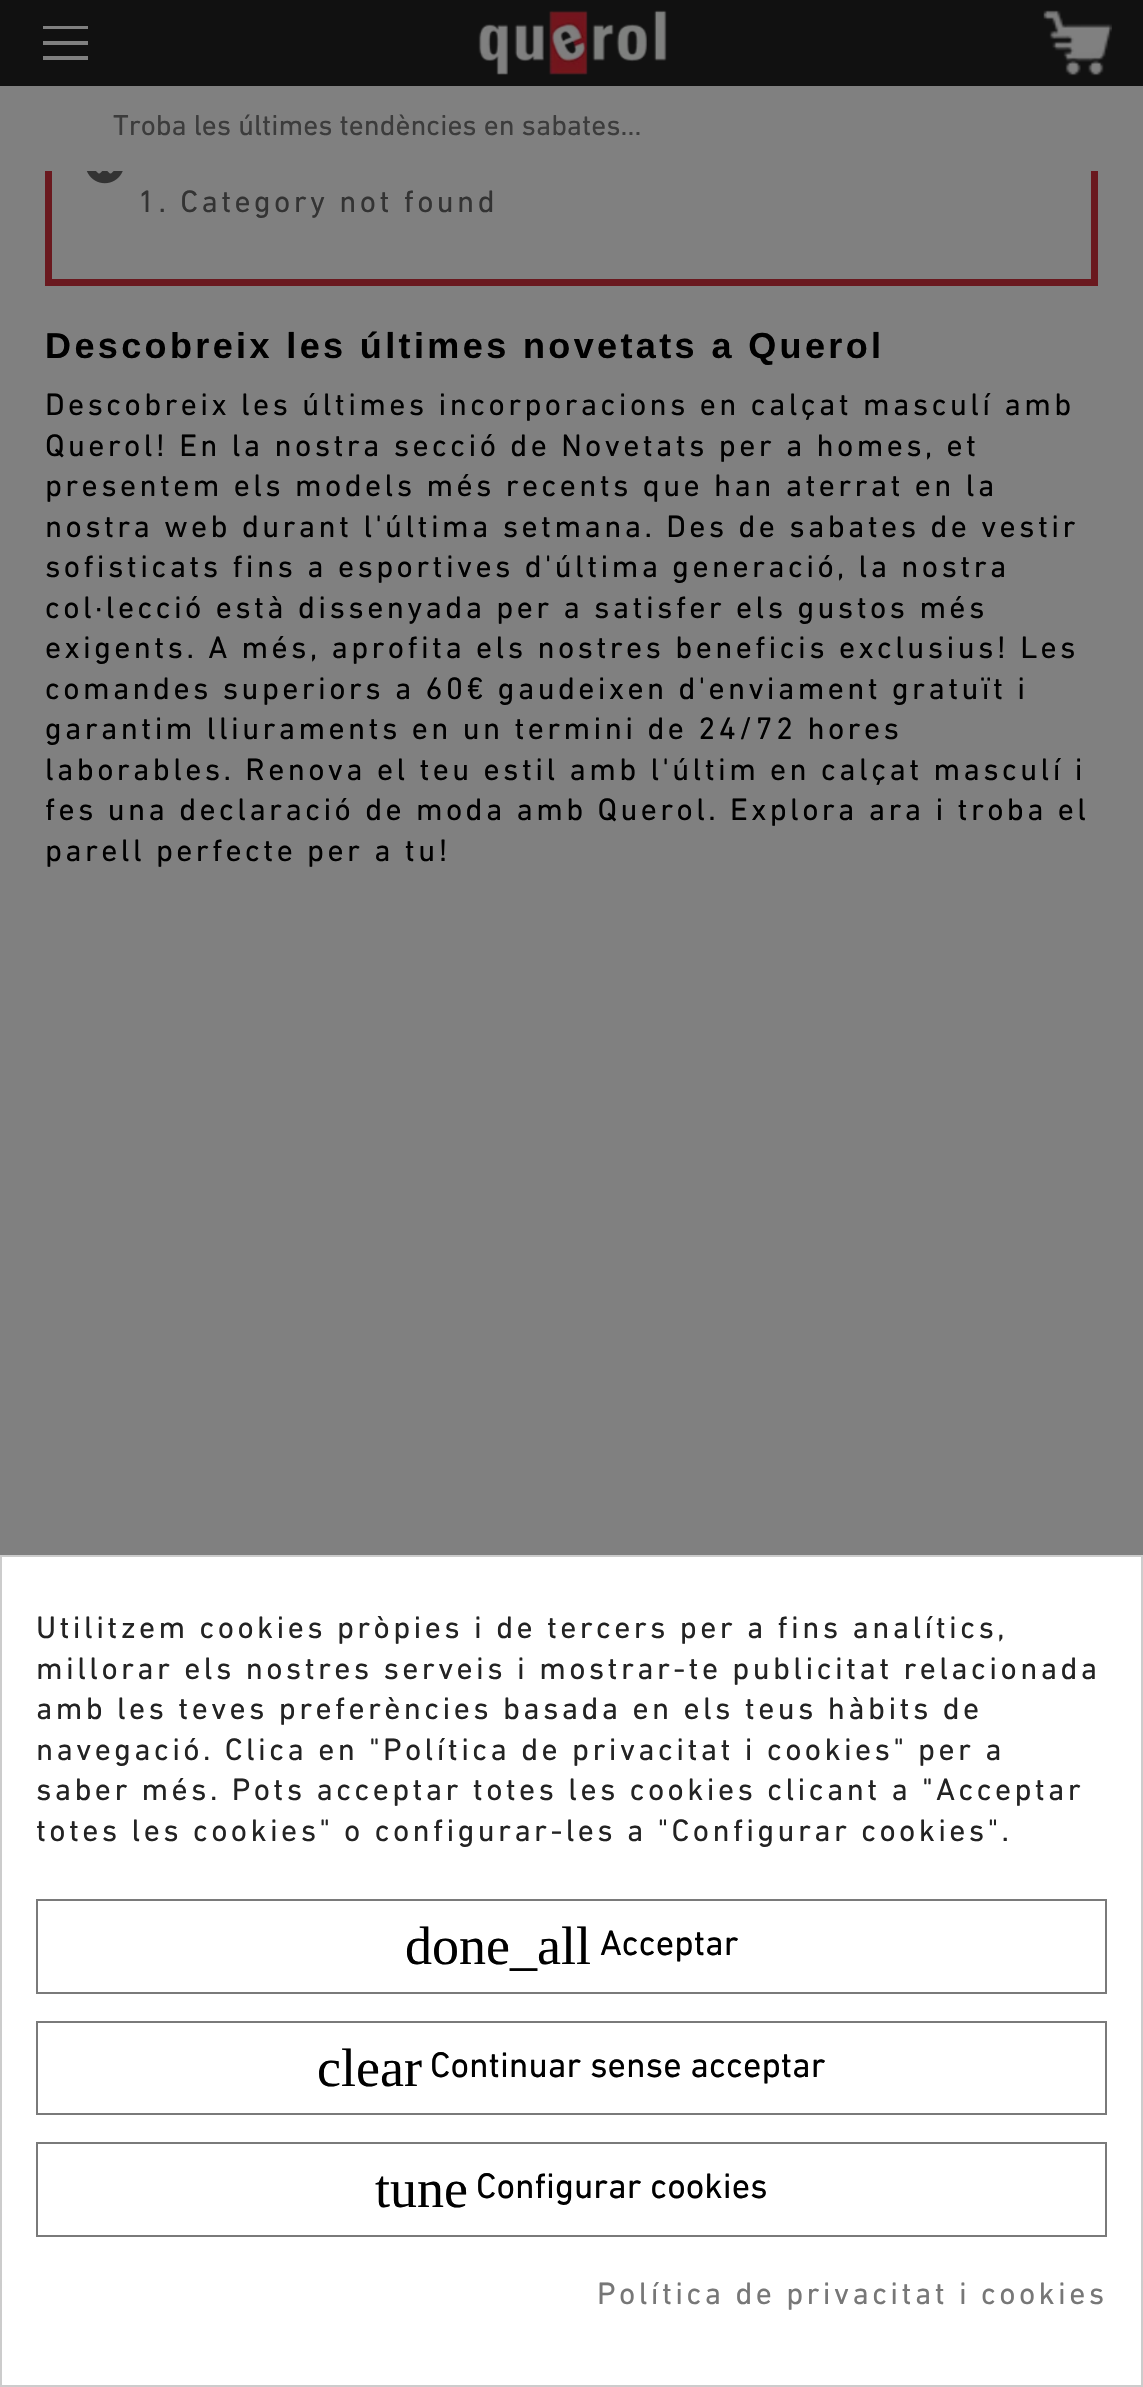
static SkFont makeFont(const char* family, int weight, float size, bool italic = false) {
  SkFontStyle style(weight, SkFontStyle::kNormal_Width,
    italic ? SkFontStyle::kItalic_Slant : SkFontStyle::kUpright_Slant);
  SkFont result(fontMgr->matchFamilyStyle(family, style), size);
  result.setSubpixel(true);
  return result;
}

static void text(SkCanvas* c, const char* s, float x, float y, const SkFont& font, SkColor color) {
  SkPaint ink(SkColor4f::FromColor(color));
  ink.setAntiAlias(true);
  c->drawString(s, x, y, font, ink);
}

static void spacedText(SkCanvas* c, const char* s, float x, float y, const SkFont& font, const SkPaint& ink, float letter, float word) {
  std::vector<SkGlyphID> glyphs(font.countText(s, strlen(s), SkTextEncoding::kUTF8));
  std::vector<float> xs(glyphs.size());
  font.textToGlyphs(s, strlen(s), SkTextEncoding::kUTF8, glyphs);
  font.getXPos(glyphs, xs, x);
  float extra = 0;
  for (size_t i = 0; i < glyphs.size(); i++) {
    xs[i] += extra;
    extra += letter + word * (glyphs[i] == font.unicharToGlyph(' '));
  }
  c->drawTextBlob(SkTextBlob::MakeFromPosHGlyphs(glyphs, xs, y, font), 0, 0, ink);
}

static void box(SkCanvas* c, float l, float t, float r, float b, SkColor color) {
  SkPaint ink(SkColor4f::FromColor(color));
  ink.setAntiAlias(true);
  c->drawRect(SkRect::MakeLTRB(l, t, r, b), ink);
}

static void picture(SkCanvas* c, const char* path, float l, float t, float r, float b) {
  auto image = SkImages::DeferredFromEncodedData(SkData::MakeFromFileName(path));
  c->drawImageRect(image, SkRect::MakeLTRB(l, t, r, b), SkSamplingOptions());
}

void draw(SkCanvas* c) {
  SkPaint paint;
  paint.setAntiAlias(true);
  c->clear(0xff808080);
  paint.setStyle(SkPaint::kStroke_Style);
  paint.setStrokeWidth(7);
  paint.setColor(0xff6a191f);
  c->drawRect(SkRect::MakeLTRB(48.5f, 82.5f, 1094.5f, 282.5f), paint);
  box(c, 0, 0, 1143, 86, 0xff111111);
  box(c, 43, 26, 88, 29, 0xff808080);
  box(c, 43, 41, 88, 45, 0xff808080);
  box(c, 43, 56, 88, 60, 0xff808080);
  picture(c, "img_01.png", 478, 10, 667, 75);
  picture(c, "img_02.png", 1043, 10, 1112, 76);
  box(c, 45, 86, 1098, 171, 0xff808080);
  SkFont face1 = makeFont("DIN Next", 400, 29.25f);
  text(c, "Troba les últimes tendències en sabates...", 113, 135, face1, 0xff3c3c3c);
  picture(c, "img_03.png", 86, 171, 123, 184);
  SkFont face2 = makeFont("DIN Next", 400, 31.5f);
  paint.setStyle(SkPaint::kFill_Style);
  paint.setColor(0xff333333);
  spacedText(c, "1. Category not found", 138, 212, face2, paint, 3.38f, 0);
  SkFont face3 = makeFont("Liberation Sans", 700, 36);
  paint.setColor(0xff000000);
  spacedText(c, "Descobreix les últimes novetats a Querol", 45, 358, face3, paint, 3.38f, 0);
  spacedText(c, "Descobreix les últimes incorporacions en calçat masculí amb", 45, 415, face2, paint, 3.38f, 0);
  spacedText(c, "Querol! En la nostra secció de Novetats per a homes, et", 45, 456, face2, paint, 3.38f, 0);
  spacedText(c, "presentem els models més recents que han aterrat en la", 45, 496, face2, paint, 3.38f, 0);
  spacedText(c, "nostra web durant l'última setmana. Des de sabates de vestir", 45, 537, face2, paint, 3.38f, 0);
  spacedText(c, "sofisticats fins a esportives d'última generació, la nostra", 45, 577, face2, paint, 3.38f, 0);
  spacedText(c, "col·lecció està dissenyada per a satisfer els gustos més", 45, 618, face2, paint, 3.38f, 0);
  spacedText(c, "exigents. A més, aprofita els nostres beneficis exclusius! Les", 45, 658, face2, paint, 3.38f, 0);
  spacedText(c, "comandes superiors a 60€ gaudeixen d'enviament gratuït i", 45, 699, face2, paint, 3.38f, 0);
  spacedText(c, "garantim lliuraments en un termini de 24/72 hores", 45, 739, face2, paint, 3.38f, 0);
  spacedText(c, "laborables. Renova el teu estil amb l'últim en calçat masculí i", 45, 780, face2, paint, 3.38f, 0);
  spacedText(c, "fes una declaració de moda amb Querol. Explora ara i troba el", 45, 820, face2, paint, 3.38f, 0);
  spacedText(c, "parell perfecte per a tu!", 45, 861, face2, paint, 3.38f, 0);
  paint.setColor(0xffffffff);
  c->drawRect(SkRect::MakeLTRB(1, 1556, 1142, 2386), paint);
  paint.setStyle(SkPaint::kStroke_Style);
  paint.setStrokeWidth(2);
  paint.setColor(0xffcccccc);
  c->drawRect(SkRect::MakeLTRB(1, 1556, 1142, 2386), paint);
  paint.setStyle(SkPaint::kFill_Style);
  paint.setColor(0xff232323);
  spacedText(c, "Utilitzem cookies pròpies i de tercers per a fins analítics,", 36, 1638, face2, paint, 3.38f, 0);
  spacedText(c, "millorar els nostres serveis i mostrar-te publicitat relacionada", 36, 1679, face2, paint, 3.38f, 0);
  spacedText(c, "amb les teves preferències basada en els teus hàbits de", 36, 1719, face2, paint, 3.38f, 0);
  spacedText(c, "navegació. Clica en \"Política de privacitat i cookies\" per a", 36, 1760, face2, paint, 3.38f, 0);
  spacedText(c, "saber més. Pots acceptar totes les cookies clicant a \"Acceptar", 36, 1800, face2, paint, 3.38f, 0);
  spacedText(c, "totes les cookies\" o configurar-les a \"Configurar cookies\".", 36, 1841, face2, paint, 3.38f, 0);
  paint.setStyle(SkPaint::kStroke_Style);
  paint.setColor(0xff7a7a7a);
  c->drawRect(SkRect::MakeLTRB(37, 1900, 1106, 1993), paint);
  SkFont face4 = makeFont("Liberation Serif", 400, 54);
  text(c, "done_all", 405, 1964, face4, 0xff000000);
  SkFont face5 = makeFont("DIN Next", 400, 36);
  text(c, "Acceptar", 600, 1955, face5, 0xff000000);
  c->drawRect(SkRect::MakeLTRB(37, 2022, 1106, 2114), paint);
  text(c, "clear", 317, 2086, face4, 0xff000000);
  text(c, "Continuar sense acceptar", 430, 2077, face5, 0xff000000);
  c->drawRect(SkRect::MakeLTRB(37, 2143, 1106, 2236), paint);
  text(c, "tune", 375, 2207, face4, 0xff000000);
  text(c, "Configurar cookies", 476, 2198, face5, 0xff000000);
  paint.setStyle(SkPaint::kFill_Style);
  paint.setColor(0xff777777);
  spacedText(c, "Política de privacitat i cookies", 597, 2304, face2, paint, 3.38f, 0);
}
